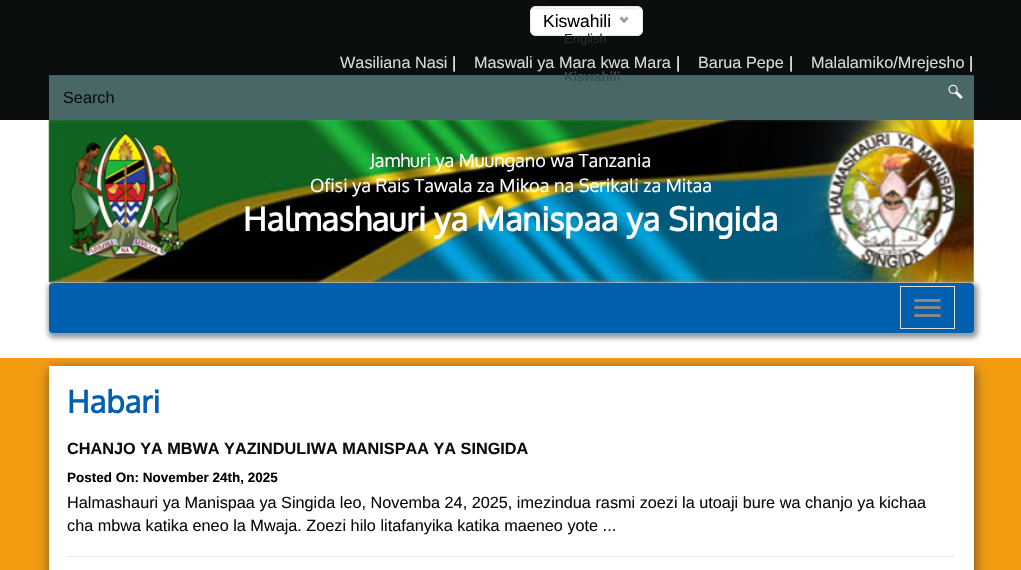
static SkFont makeFont(const char* family, int weight, float size, bool italic = false) {
  SkFontStyle style(weight, SkFontStyle::kNormal_Width,
    italic ? SkFontStyle::kItalic_Slant : SkFontStyle::kUpright_Slant);
  SkFont result(fontMgr->matchFamilyStyle(family, style), size);
  result.setSubpixel(true);
  return result;
}

static void text(SkCanvas* c, const char* s, float x, float y, const SkFont& font, SkColor color) {
  SkPaint ink(SkColor4f::FromColor(color));
  ink.setAntiAlias(true);
  c->drawString(s, x, y, font, ink);
}

static void box(SkCanvas* c, float l, float t, float r, float b, SkColor color) {
  SkPaint ink(SkColor4f::FromColor(color));
  ink.setAntiAlias(true);
  c->drawRect(SkRect::MakeLTRB(l, t, r, b), ink);
}

static void roundBox(SkCanvas* c, float l, float t, float r, float b, float radius, SkColor color) {
  SkPaint ink(SkColor4f::FromColor(color));
  ink.setAntiAlias(true);
  c->drawRoundRect(SkRect::MakeLTRB(l, t, r, b), radius, radius, ink);
}

static void picture(SkCanvas* c, const char* path, float l, float t, float r, float b) {
  auto image = SkImages::DeferredFromEncodedData(SkData::MakeFromFileName(path));
  c->drawImageRect(image, SkRect::MakeLTRB(l, t, r, b), SkSamplingOptions());
}

void draw(SkCanvas* c) {
  SkPaint paint;
  paint.setAntiAlias(true);
  c->clear(0xfff39c12);
  box(c, 0, 0, 1021, 120, 0xff0a0e0e);
  roundBox(c, 530, 6, 643, 36, 6, 0xffffffff);
  paint.setColor(0xffececec);
  c->drawPath(SkPathBuilder().moveTo(536, 9).lineTo(636, 9).cubicTo(639, 9, 641, 11, 641, 14).cubicTo(641, 4, 624, 8, 619, 8).lineTo(553, 8).cubicTo(548, 8, 531, 4, 531, 14).cubicTo(531, 11, 533, 9, 536, 9).close().detach(), paint);
  paint.setStyle(SkPaint::kStroke_Style);
  paint.setStrokeWidth(1);
  paint.setColor(0xffe8e8e8);
  c->drawRoundRect(SkRect::MakeLTRB(530.5f, 6.5f, 642.5f, 35.5f), 5.5f, 5.5f, paint);
  SkFont face1 = makeFont("Liberation Sans", 400, 17.5f);
  text(c, "Kiswahili", 543, 27, face1, 0xff000000);
  paint.setStyle(SkPaint::kFill_Style);
  paint.setColor(0xff999999);
  c->drawPath(SkPathBuilder().moveTo(626.5f, 16.5f).lineTo(628.5f, 18.5f).lineTo(624, 23).lineTo(622.5f, 21).close().detach(), paint);
  c->drawPath(SkPathBuilder().moveTo(621.5f, 16.5f).lineTo(626, 21).lineTo(624, 23).lineTo(619.5f, 18.5f).close().detach(), paint);
  SkFont face2 = makeFont("Liberation Sans", 400, 13);
  text(c, "English", 564, 43, face2, 0xff272a2a);
  box(c, 49, 76, 974, 120, 0xff4a6767);
  box(c, 49, 75, 974, 76, 0xff445f5f);
  SkFont face3 = makeFont("Liberation Sans", 700, 13);
  text(c, "Kiswahili", 564, 81, face3, 0xff394f4f);
  SkFont face4 = makeFont("Liberation Sans", 400, 16.25f);
  text(c, "Wasiliana Nasi", 340, 68, face4, 0xffd9d9d9);
  text(c, "|", 452, 68, face4, 0xffffffff);
  text(c, "Maswali ya Mara kwa Mara", 474, 68, face4, 0xffd9d9d9);
  text(c, "|", 676, 68, face4, 0xffffffff);
  text(c, "Barua Pepe", 698, 68, face4, 0xffd9d9d9);
  text(c, "|", 789, 68, face4, 0xffffffff);
  text(c, "Malalamiko/Mrejesho", 811, 68, face4, 0xffd9d9d9);
  text(c, "|", 969, 68, face4, 0xffffffff);
  text(c, "Search", 63, 103, face4, 0xff0a0e0e);
  picture(c, "img_01.png", 948, 84, 963, 99);
  box(c, 0, 120, 1021, 358, 0xffffffff);
  picture(c, "img_02.png", 48, 120, 974, 283);
  picture(c, "img_03.png", 68, 132, 184, 259);
  SkFont face5 = makeFont("Oxygen", 400, 18.1f);
  text(c, "Jamhuri ya Muungano wa Tanzania", 370, 167, face5, 0xffffffff);
  text(c, "Ofisi ya Rais Tawala za Mikoa na Serikali za Mitaa", 310, 192, face5, 0xffffffff);
  SkFont face6 = makeFont("Oxygen", 700, 32.5f);
  text(c, "Halmashauri ya Manispaa ya Singida", 243, 231, face6, 0xffffffff);
  picture(c, "img_04.png", 827, 131, 955, 269);
  paint.setMaskFilter(SkMaskFilter::MakeBlur(kNormal_SkBlurStyle, 2.5f));
  c->drawRoundRect(SkRect::MakeLTRB(48, 283, 978, 338), 6, 6, paint);
  paint.setMaskFilter(nullptr);
  roundBox(c, 49, 283, 974, 333, 4, 0xff005faf);
  paint.setStyle(SkPaint::kStroke_Style);
  paint.setColor(0xffdddddd);
  c->drawRect(SkRect::MakeLTRB(900.5f, 286.5f, 954.5f, 328.5f), paint);
  roundBox(c, 914, 299, 941, 302, 1.5f, 0xff888888);
  roundBox(c, 914, 306, 941, 309, 1.5f, 0xff888888);
  roundBox(c, 914, 314, 941, 317, 1.5f, 0xff888888);
  paint.setStyle(SkPaint::kFill_Style);
  paint.setColor(0xbf323232);
  paint.setMaskFilter(SkMaskFilter::MakeBlur(kNormal_SkBlurStyle, 6));
  c->drawRect(SkRect::MakeLTRB(50, 369, 975, 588), paint);
  paint.setMaskFilter(nullptr);
  box(c, 49, 366, 974, 570, 0xffffffff);
  SkFont face7 = makeFont("Oxygen", 700, 31);
  text(c, "Habari", 67, 413, face7, 0xff005faf);
  box(c, 68, 556, 955, 557, 0xffe6e6e6);
  SkFont face8 = makeFont("Liberation Sans", 700, 16.25f);
  text(c, "CHANJO YA MBWA YAZINDULIWA MANISPAA YA SINGIDA", 67, 454, face8, 0xff0a0e0e);
  SkFont face9 = makeFont("Liberation Sans", 700, 13.5f);
  text(c, "Posted On: November 24th, 2025", 67, 482, face9, 0xff000000);
  text(c, "Halmashauri ya Manispaa ya Singida leo, Novemba 24, 2025, imezindua rasmi zoezi la utoaji bure wa chanjo ya kichaa", 67, 508, face4, 0xff0a0e0e);
  text(c, "cha mbwa katika eneo la Mwaja. Zoezi hilo litafanyika katika maeneo yote ...", 67, 531, face4, 0xff0a0e0e);
}
